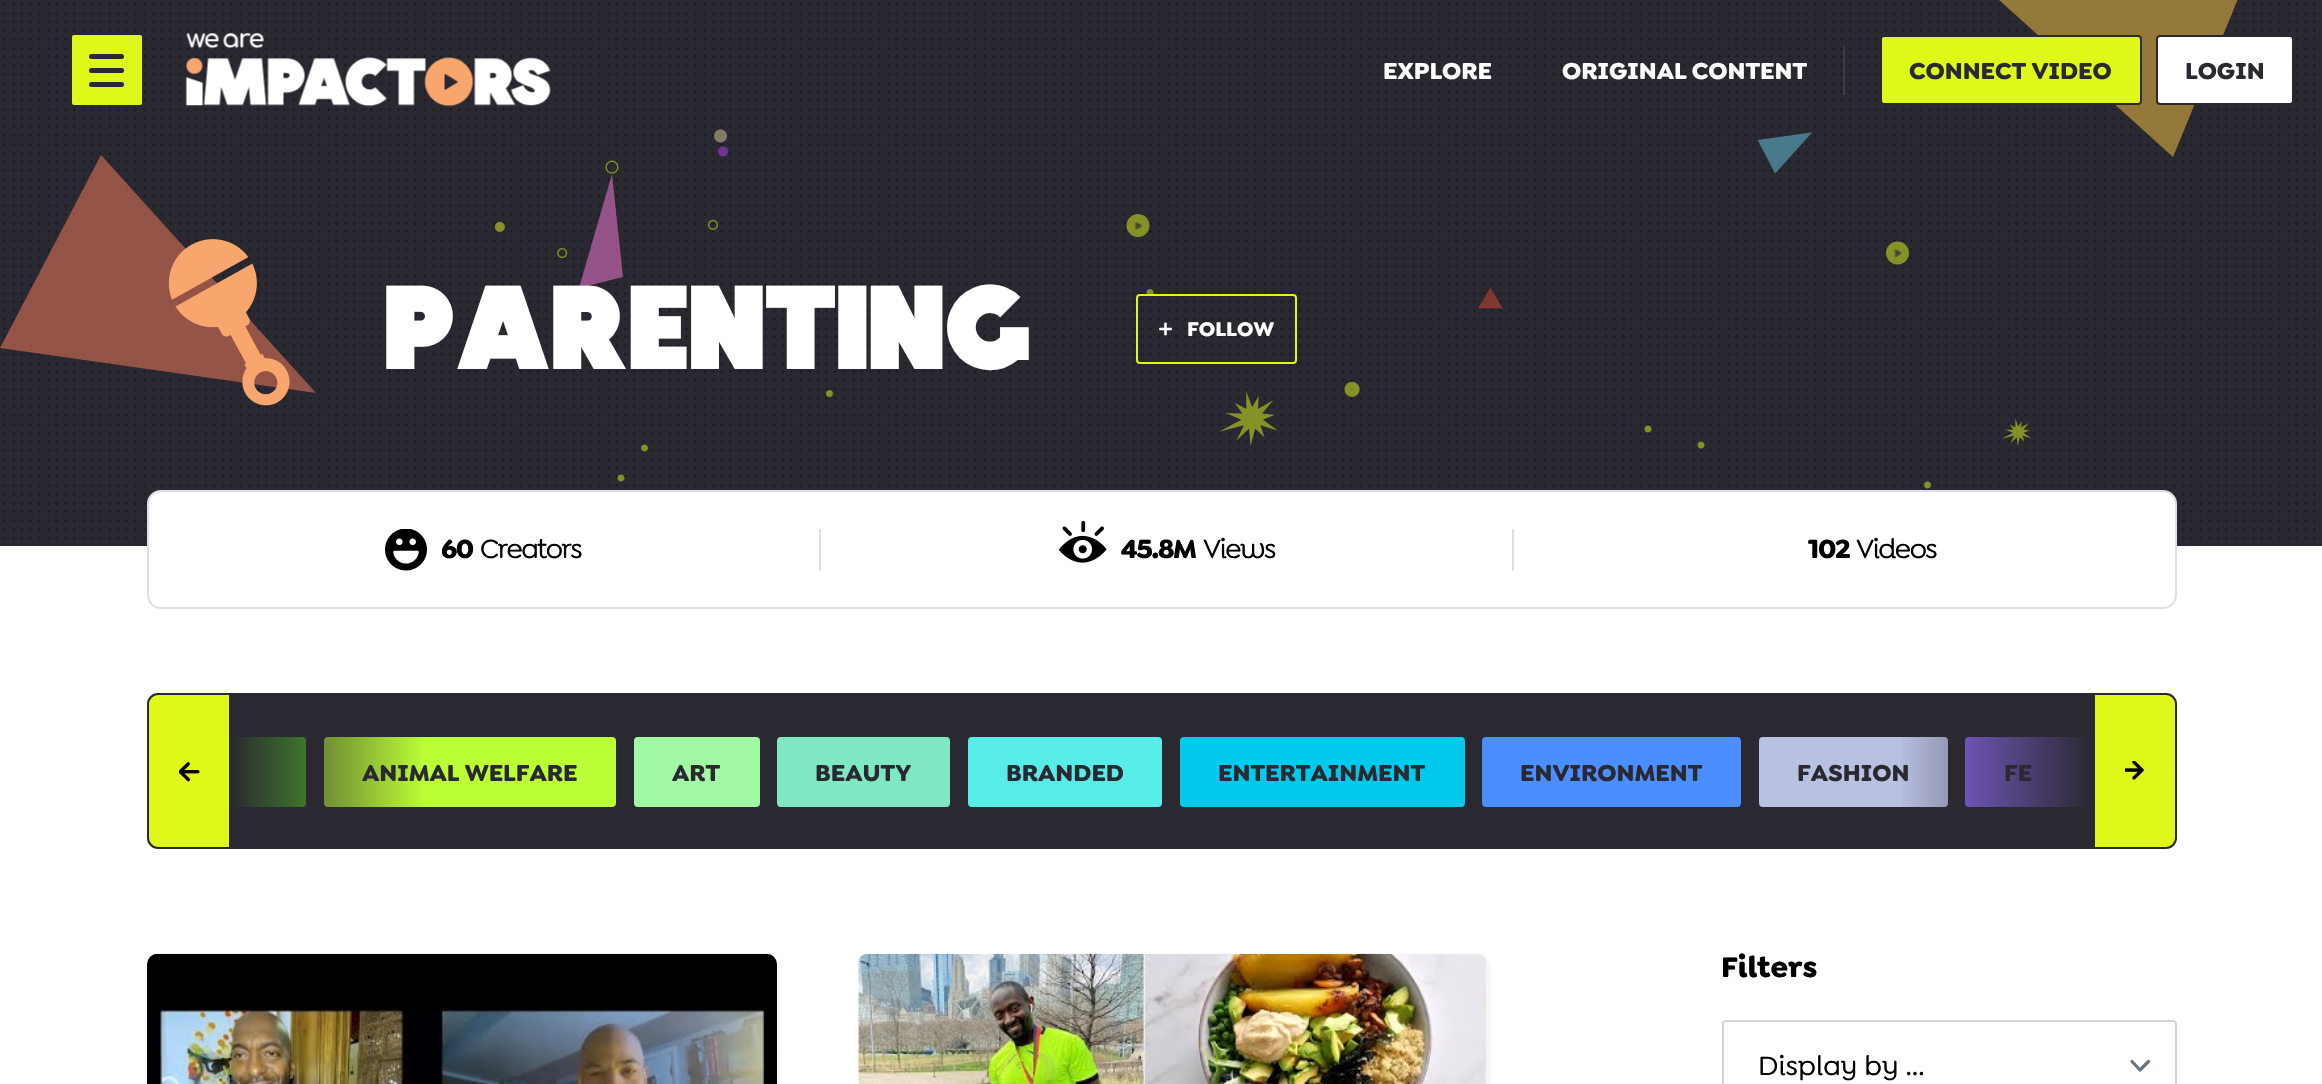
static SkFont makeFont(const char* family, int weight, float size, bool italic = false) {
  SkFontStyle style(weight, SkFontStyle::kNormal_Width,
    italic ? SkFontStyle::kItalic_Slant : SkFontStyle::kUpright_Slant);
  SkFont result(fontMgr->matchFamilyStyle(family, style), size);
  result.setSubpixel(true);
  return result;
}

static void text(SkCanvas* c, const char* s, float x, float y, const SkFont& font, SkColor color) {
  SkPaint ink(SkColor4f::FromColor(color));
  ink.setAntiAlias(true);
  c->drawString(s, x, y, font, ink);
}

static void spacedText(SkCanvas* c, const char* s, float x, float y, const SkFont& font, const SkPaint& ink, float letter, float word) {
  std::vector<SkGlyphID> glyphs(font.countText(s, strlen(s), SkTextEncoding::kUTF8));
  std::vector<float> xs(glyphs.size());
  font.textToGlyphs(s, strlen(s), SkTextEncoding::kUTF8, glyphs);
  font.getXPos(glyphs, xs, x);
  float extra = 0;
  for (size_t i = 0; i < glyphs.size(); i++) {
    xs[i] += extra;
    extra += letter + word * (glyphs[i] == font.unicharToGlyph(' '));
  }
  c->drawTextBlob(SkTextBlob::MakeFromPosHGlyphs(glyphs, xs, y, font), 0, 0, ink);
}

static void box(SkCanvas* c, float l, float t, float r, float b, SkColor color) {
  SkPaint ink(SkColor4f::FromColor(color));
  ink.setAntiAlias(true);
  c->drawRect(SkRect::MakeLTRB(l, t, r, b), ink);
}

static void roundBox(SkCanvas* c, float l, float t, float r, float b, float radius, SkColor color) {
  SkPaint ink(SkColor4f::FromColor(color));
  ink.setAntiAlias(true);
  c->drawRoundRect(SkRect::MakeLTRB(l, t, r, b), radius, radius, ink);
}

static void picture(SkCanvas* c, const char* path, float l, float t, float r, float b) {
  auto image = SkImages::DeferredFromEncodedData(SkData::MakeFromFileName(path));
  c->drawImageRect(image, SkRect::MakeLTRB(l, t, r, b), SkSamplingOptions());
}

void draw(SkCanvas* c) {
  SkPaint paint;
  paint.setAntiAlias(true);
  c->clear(0xffffffff);
  box(c, 0, 0, 2322, 546, 0xff2a2830);
  picture(c, "img_02.png", 3, 3, 2316, 546);
  paint.setColor(0xffdef81a);
  c->drawRoundRect(SkRect::MakeLTRB(71, 34, 143, 106), 3, 3, paint);
  paint.setStyle(SkPaint::kStroke_Style);
  paint.setStrokeWidth(2);
  paint.setColor(0xff2a2830);
  c->drawRoundRect(SkRect::MakeLTRB(71, 34, 143, 106), 3, 3, paint);
  roundBox(c, 89, 54, 124, 59, 2.5f, 0xff2a2830);
  roundBox(c, 89, 68, 124, 73, 2.5f, 0xff2a2830);
  roundBox(c, 89, 82, 124, 87, 2.5f, 0xff2a2830);
  picture(c, "img_01.png", 185, 33, 551, 107);
  SkFont face1 = makeFont("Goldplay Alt", 700, 24.5f);
  text(c, "EXPLORE", 1383, 79, face1, 0xffffffff);
  text(c, "ORIGINAL CONTENT", 1562, 79, face1, 0xffffffff);
  box(c, 1843, 46, 1845, 95, 0xff3f3d44);
  picture(c, "img_03.png", 494, 129, 1931, 489);
  picture(c, "img_04.png", 1126, 132, 2031, 446);
  paint.setStyle(SkPaint::kFill_Style);
  paint.setColor(0x80ffca46);
  c->drawPath(SkPathBuilder(SkPathFillType::kEvenOdd).moveTo(1936, -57).lineTo(2256, -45).lineTo(2173, 157).close().detach(), paint);
  paint.setColor(0xffdef81a);
  c->drawRoundRect(SkRect::MakeLTRB(1881, 36, 2141, 104), 3, 3, paint);
  paint.setStyle(SkPaint::kStroke_Style);
  paint.setColor(0xff2a2830);
  c->drawRoundRect(SkRect::MakeLTRB(1881, 36, 2141, 104), 3, 3, paint);
  text(c, "CONNECT VIDEO", 1909, 79, face1, 0xff2a2830);
  paint.setStyle(SkPaint::kFill_Style);
  paint.setColor(0xffffffff);
  c->drawRoundRect(SkRect::MakeLTRB(2157, 36, 2293, 104), 3, 3, paint);
  paint.setStyle(SkPaint::kStroke_Style);
  paint.setColor(0xff2a2830);
  c->drawRoundRect(SkRect::MakeLTRB(2157, 36, 2293, 104), 3, 3, paint);
  text(c, "LOGIN", 2185, 79, face1, 0xff2a2830);
  paint.setStyle(SkPaint::kFill_Style);
  paint.setColor(0x80ff7de0);
  c->drawPath(SkPathBuilder(SkPathFillType::kEvenOdd).moveTo(623, 277).lineTo(612, 174).lineTo(579, 288).close().detach(), paint);
  paint.setColor(0x80ff7f60);
  c->drawPath(SkPathBuilder(SkPathFillType::kEvenOdd).moveTo(316, 393).lineTo(101, 155).lineTo(0, 348).close().detach(), paint);
  picture(c, "img_05.png", 168, 239, 290, 406);
  SkFont face2 = makeFont("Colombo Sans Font", 400, 119);
  text(c, "PARENTING", 384, 369, face2, 0xffffffff);
  paint.setStyle(SkPaint::kStroke_Style);
  paint.setColor(0xffdef81a);
  c->drawRoundRect(SkRect::MakeLTRB(1137, 295, 1296, 363), 3, 3, paint);
  picture(c, "img_06.png", 1159, 322, 1172, 336);
  SkFont face3 = makeFont("Goldplay Alt", 700, 21);
  text(c, "FOLLOW", 1187, 336, face3, 0xffffffff);
  paint.setStyle(SkPaint::kFill_Style);
  paint.setColor(0xffffffff);
  c->drawRoundRect(SkRect::MakeLTRB(148, 491, 2176, 608), 13, 13, paint);
  paint.setStyle(SkPaint::kStroke_Style);
  paint.setColor(0xffdfdde5);
  c->drawRoundRect(SkRect::MakeLTRB(148, 491, 2176, 608), 13, 13, paint);
  picture(c, "img_07.png", 385, 529, 427, 571);
  SkFont face4 = makeFont("Goldplay Alt", 700, 28);
  paint.setStyle(SkPaint::kFill_Style);
  paint.setColor(0xff000000);
  spacedText(c, "60", 441, 558, face4, paint, -1.5f, 0);
  SkFont face5 = makeFont("Goldplay Alt", 500, 28);
  spacedText(c, "Creators", 480, 558, face5, paint, -1.5f, 0);
  box(c, 819, 529, 821, 571, 0xffdfdde5);
  picture(c, "img_08.png", 1059, 520, 1107, 563);
  spacedText(c, "45.8M", 1121, 558, face4, paint, -1.5f, 0);
  spacedText(c, "Views", 1203, 558, face5, paint, -1.5f, 0);
  box(c, 1512, 529, 1514, 571, 0xffdfdde5);
  spacedText(c, "102", 1808, 558, face4, paint, -1.5f, 0);
  spacedText(c, "Videos", 1856, 558, face5, paint, -1.5f, 0);
  paint.setColor(0xffdef81a);
  c->drawPath(SkPathBuilder().moveTo(158, 694).lineTo(230, 694).lineTo(230, 848).lineTo(158, 848).cubicTo(152.5f, 848, 148, 843.5f, 148, 838).lineTo(148, 704).cubicTo(148, 698.5f, 152.5f, 694, 158, 694).close().detach(), paint);
  paint.setStyle(SkPaint::kStroke_Style);
  paint.setColor(0xff2a2830);
  c->drawPath(SkPathBuilder().moveTo(158, 694).lineTo(230, 694).lineTo(230, 848).lineTo(158, 848).cubicTo(152.5f, 848, 148, 843.5f, 148, 838).lineTo(148, 704).cubicTo(148, 698.5f, 152.5f, 694, 158, 694).close().detach(), paint);
  picture(c, "img_09.png", 179, 762, 200, 782);
  box(c, 231, 693, 2092, 849, 0xff2a2830);
  paint.setStyle(SkPaint::kFill_Style);
  paint.setColor(0xff5bed28);
  c->drawPath(SkPathBuilder().moveTo(231, 737).lineTo(302, 737).cubicTo(304, 737, 306, 739, 306, 741).lineTo(306, 803).cubicTo(306, 805, 304, 807, 302, 807).lineTo(231, 807).close().detach(), paint);
  c->save();
  c->clipRect(SkRect::MakeLTRB(231, 707, 2093, 807));
  paint.setStyle(SkPaint::kStroke_Style);
  paint.setStrokeWidth(4);
  c->drawRoundRect(SkRect::MakeLTRB(146, 739, 304, 805), 2, 2, paint);
  c->restore();
  paint.setStyle(SkPaint::kFill_Style);
  paint.setColor(0xffbcfe36);
  c->drawRoundRect(SkRect::MakeLTRB(326, 739, 614, 805), 2, 2, paint);
  paint.setStyle(SkPaint::kStroke_Style);
  c->drawRoundRect(SkRect::MakeLTRB(326, 739, 614, 805), 2, 2, paint);
  text(c, "ANIMAL WELFARE", 362, 781, face1, 0xff2a2830);
  paint.setStyle(SkPaint::kFill_Style);
  {
    const SkColor colors[] = {0x002a2830, 0xff2a2830};
    const float stops[] = {0, 1};
    const SkPoint ends[] = {{426, 771}, {230, 771}};
    paint.setShader(SkGradientShader::MakeLinear(ends, colors, stops, 2, SkTileMode::kClamp));
    paint.setAlpha(255);
  }
  c->drawRect(SkRect::MakeLTRB(231, 737, 422, 807), paint);
  paint.setShader(nullptr);
  paint.setColor(0xffb9c1e3);
  c->drawRoundRect(SkRect::MakeLTRB(1761, 739, 1946, 805), 2, 2, paint);
  paint.setStyle(SkPaint::kStroke_Style);
  c->drawRoundRect(SkRect::MakeLTRB(1761, 739, 1946, 805), 2, 2, paint);
  text(c, "FASHION", 1797, 781, face1, 0xff2a2830);
  paint.setStyle(SkPaint::kFill_Style);
  paint.setColor(0xff8f6bfa);
  c->drawPath(SkPathBuilder().moveTo(1969, 737).lineTo(2093, 737).lineTo(2093, 807).lineTo(1969, 807).cubicTo(1967, 807, 1965, 805, 1965, 803).lineTo(1965, 741).cubicTo(1965, 739, 1967, 737, 1969, 737).close().detach(), paint);
  paint.setColor(0xffdef81a);
  c->drawPath(SkPathBuilder().moveTo(2094, 694).lineTo(2166, 694).cubicTo(2171.5f, 694, 2176, 698.5f, 2176, 704).lineTo(2176, 838).cubicTo(2176, 843.5f, 2171.5f, 848, 2166, 848).lineTo(2094, 848).close().detach(), paint);
  paint.setStyle(SkPaint::kStroke_Style);
  paint.setStrokeWidth(2);
  paint.setColor(0xff2a2830);
  c->drawPath(SkPathBuilder().moveTo(2094, 694).lineTo(2166, 694).cubicTo(2171.5f, 694, 2176, 698.5f, 2176, 704).lineTo(2176, 838).cubicTo(2176, 843.5f, 2171.5f, 848, 2166, 848).lineTo(2094, 848).close().detach(), paint);
  c->save();
  c->clipRect(SkRect::MakeLTRB(231, 707, 2093, 807));
  paint.setStrokeWidth(4);
  paint.setColor(0xff8f6bfa);
  c->drawRoundRect(SkRect::MakeLTRB(1967, 739, 2177, 805), 2, 2, paint);
  c->restore();
  text(c, "FE", 2004, 781, face1, 0xff2a2830);
  paint.setStyle(SkPaint::kFill_Style);
  {
    const SkColor colors[] = {0x002a2830, 0xff2a2830};
    const float stops[] = {0, 1};
    const SkPoint ends[] = {{1897, 771}, {2093, 771}};
    paint.setShader(SkGradientShader::MakeLinear(ends, colors, stops, 2, SkTileMode::kClamp));
    paint.setAlpha(255);
  }
  c->drawRect(SkRect::MakeLTRB(1901, 693, 2093, 849), paint);
  paint.setShader(nullptr);
  paint.setColor(0xffa1f9a4);
  c->drawRoundRect(SkRect::MakeLTRB(636, 739, 758, 805), 2, 2, paint);
  paint.setStyle(SkPaint::kStroke_Style);
  c->drawRoundRect(SkRect::MakeLTRB(636, 739, 758, 805), 2, 2, paint);
  text(c, "ART", 672, 781, face1, 0xff2a2830);
  paint.setStyle(SkPaint::kFill_Style);
  paint.setColor(0xff7fe7c1);
  c->drawRoundRect(SkRect::MakeLTRB(779, 739, 948, 805), 2, 2, paint);
  paint.setStyle(SkPaint::kStroke_Style);
  c->drawRoundRect(SkRect::MakeLTRB(779, 739, 948, 805), 2, 2, paint);
  text(c, "BEAUTY", 815, 781, face1, 0xff2a2830);
  paint.setStyle(SkPaint::kFill_Style);
  paint.setColor(0xff56ece7);
  c->drawRoundRect(SkRect::MakeLTRB(970, 739, 1160, 805), 2, 2, paint);
  paint.setStyle(SkPaint::kStroke_Style);
  c->drawRoundRect(SkRect::MakeLTRB(970, 739, 1160, 805), 2, 2, paint);
  text(c, "BRANDED", 1006, 781, face1, 0xff2a2830);
  paint.setStyle(SkPaint::kFill_Style);
  paint.setColor(0xff00caeb);
  c->drawRoundRect(SkRect::MakeLTRB(1182, 739, 1463, 805), 2, 2, paint);
  paint.setStyle(SkPaint::kStroke_Style);
  c->drawRoundRect(SkRect::MakeLTRB(1182, 739, 1463, 805), 2, 2, paint);
  text(c, "ENTERTAINMENT", 1218, 781, face1, 0xff2a2830);
  paint.setStyle(SkPaint::kFill_Style);
  paint.setColor(0xff4b8eff);
  c->drawRoundRect(SkRect::MakeLTRB(1484, 739, 1739, 805), 2, 2, paint);
  paint.setStyle(SkPaint::kStroke_Style);
  c->drawRoundRect(SkRect::MakeLTRB(1484, 739, 1739, 805), 2, 2, paint);
  text(c, "ENVIRONMENT", 1520, 781, face1, 0xff2a2830);
  picture(c, "img_10.png", 2125, 761, 2144, 780);
  paint.setStyle(SkPaint::kFill_Style);
  paint.setColor(0x80ebebeb);
  paint.setMaskFilter(SkMaskFilter::MakeBlur(kNormal_SkBlurStyle, 2));
  c->drawRoundRect(SkRect::MakeLTRB(151, 957, 781, 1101), 11, 11, paint);
  paint.setMaskFilter(nullptr);
  picture(c, "img_11.png", 147, 953, 777, 1084);
  paint.setMaskFilter(SkMaskFilter::MakeBlur(kNormal_SkBlurStyle, 2));
  c->drawRoundRect(SkRect::MakeLTRB(861, 957, 1491, 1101), 11, 11, paint);
  paint.setMaskFilter(nullptr);
  picture(c, "img_12.png", 857, 953, 1487, 1084);
  SkFont face6 = makeFont("Goldplay Alt", 700, 30);
  text(c, "Filters", 1721, 977, face6, 0xff000000);
  paint.setStyle(SkPaint::kStroke_Style);
  paint.setStrokeWidth(3.2f);
  paint.setStrokeCap(SkPaint::kRound_Cap);
  paint.setStrokeJoin(SkPaint::kRound_Join);
  paint.setColor(0xff6b7280);
  c->drawPath(SkPathBuilder().moveTo(2132, 1061.5f).lineTo(2140, 1070).lineTo(2148.5f, 1061.5f).detach(), paint);
  paint.setStrokeWidth(2);
  paint.setStrokeCap(SkPaint::kButt_Cap);
  paint.setStrokeJoin(SkPaint::kMiter_Join);
  paint.setColor(0xffd4d4d6);
  c->drawRoundRect(SkRect::MakeLTRB(1723, 1021, 2176, 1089), 3, 3, paint);
  text(c, "Display by ...", 1758, 1075, face5, 0xff000000);
}
